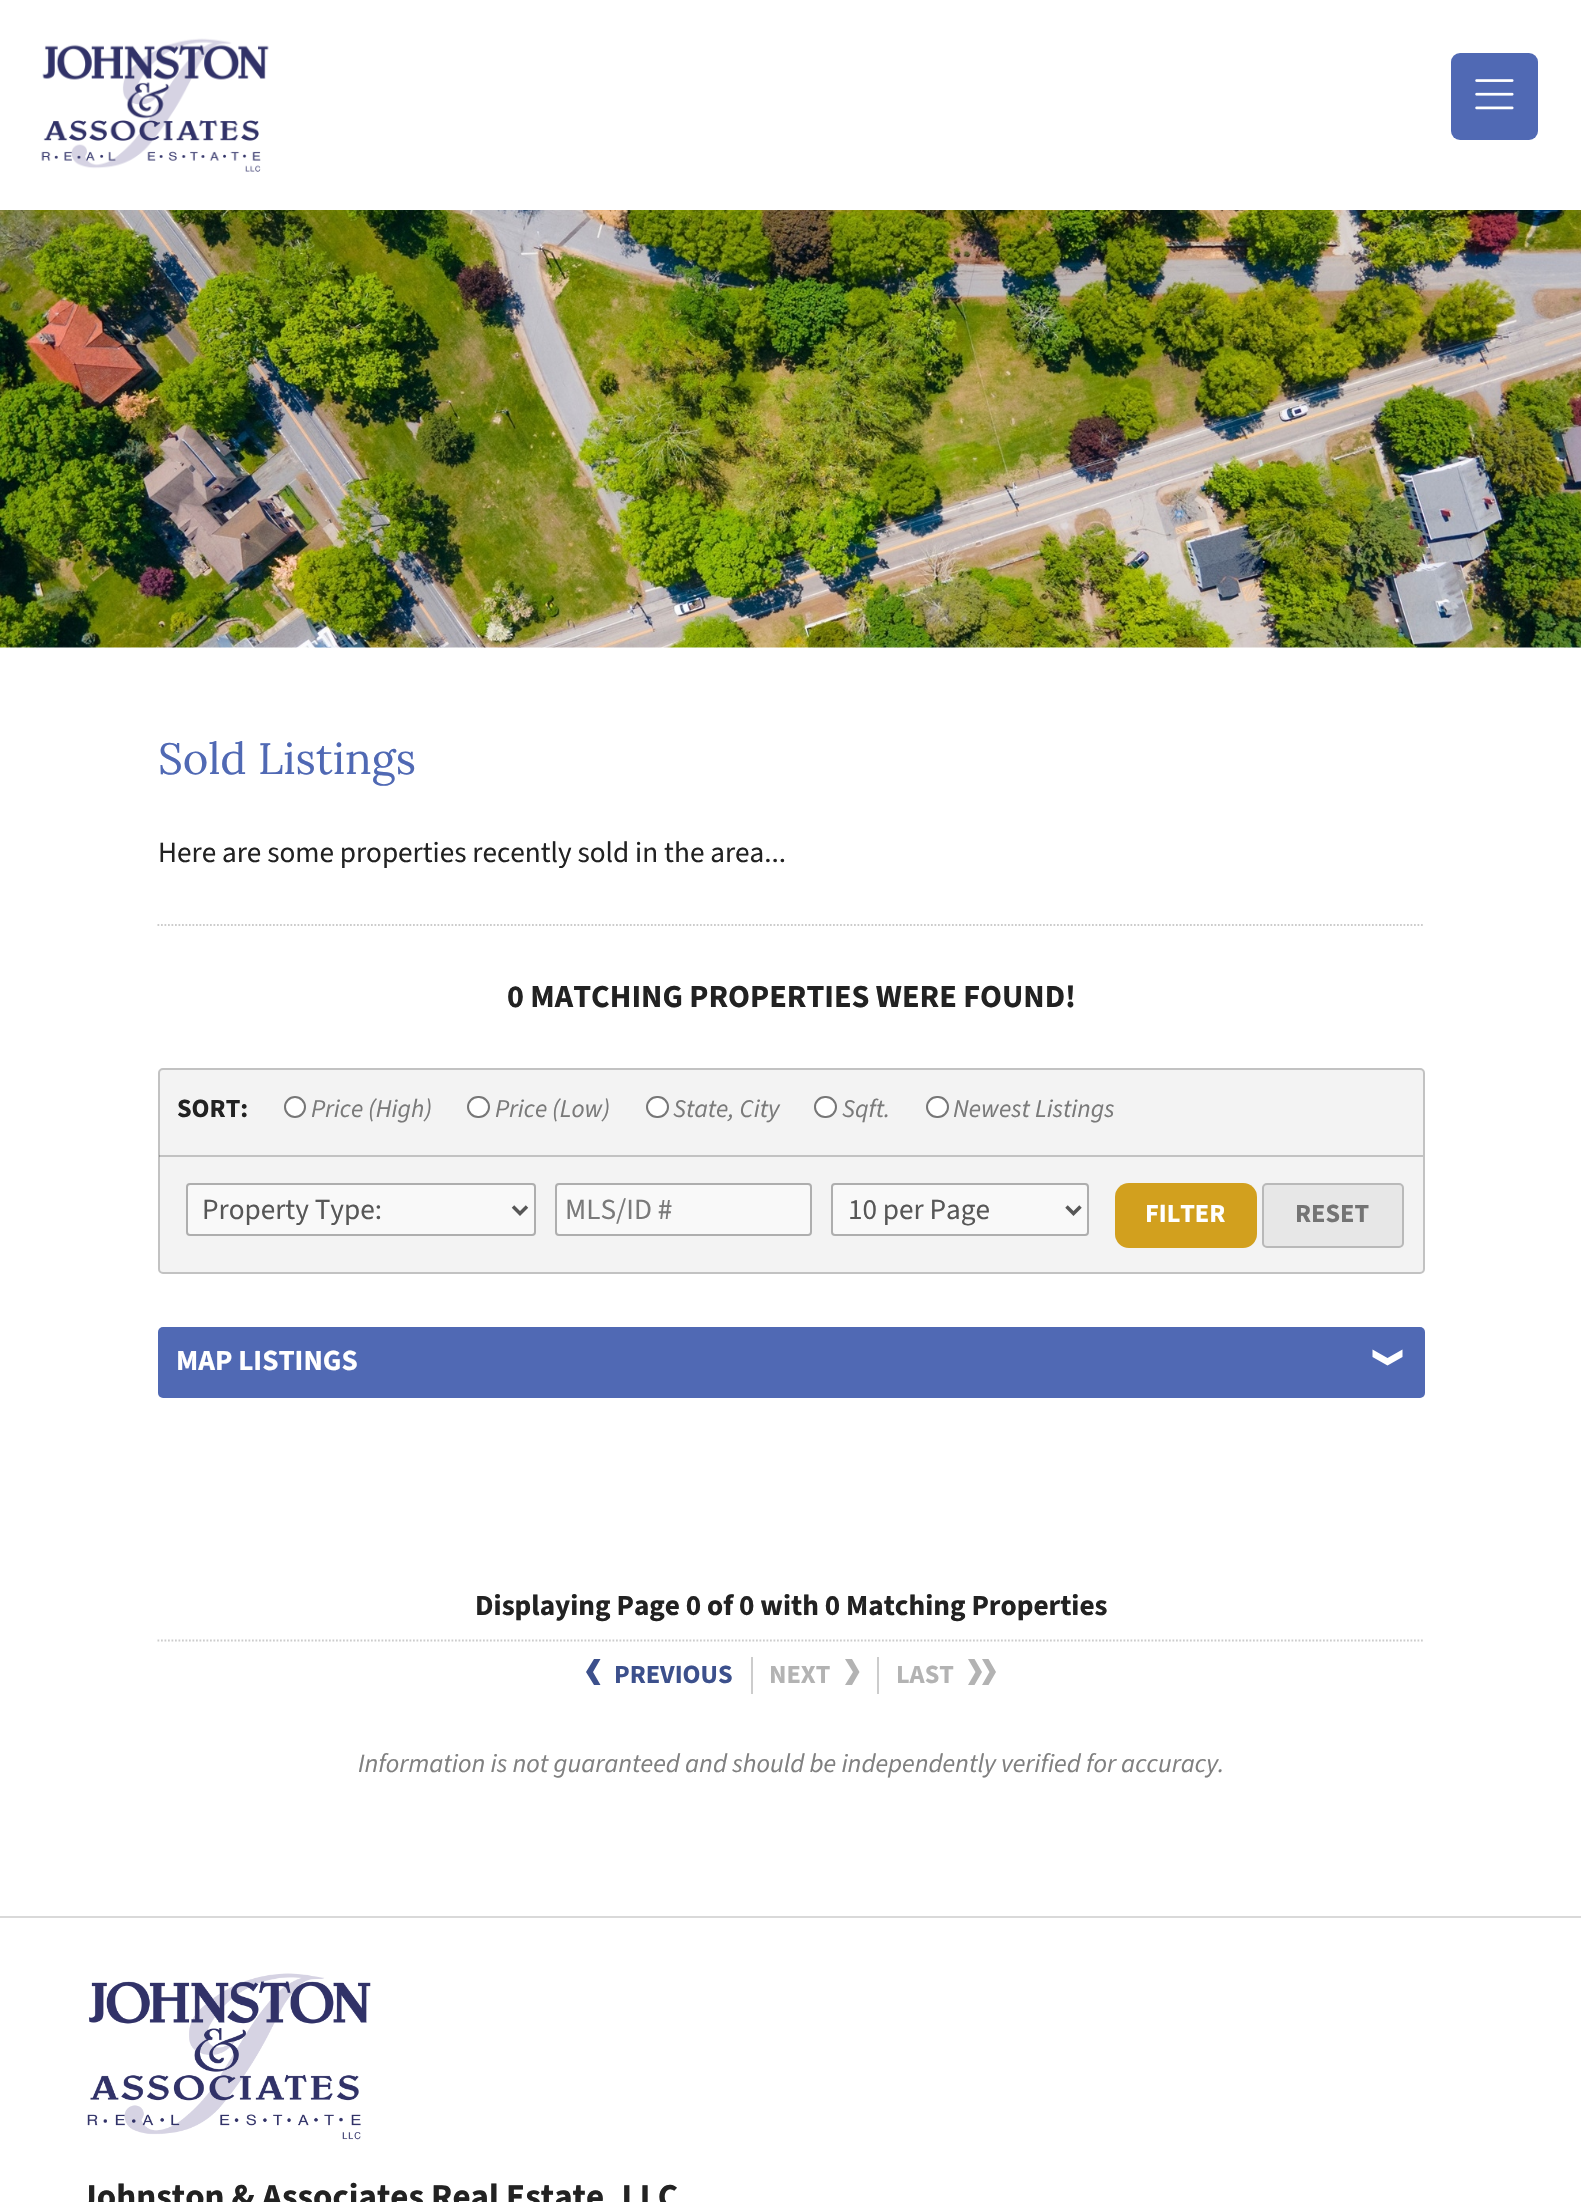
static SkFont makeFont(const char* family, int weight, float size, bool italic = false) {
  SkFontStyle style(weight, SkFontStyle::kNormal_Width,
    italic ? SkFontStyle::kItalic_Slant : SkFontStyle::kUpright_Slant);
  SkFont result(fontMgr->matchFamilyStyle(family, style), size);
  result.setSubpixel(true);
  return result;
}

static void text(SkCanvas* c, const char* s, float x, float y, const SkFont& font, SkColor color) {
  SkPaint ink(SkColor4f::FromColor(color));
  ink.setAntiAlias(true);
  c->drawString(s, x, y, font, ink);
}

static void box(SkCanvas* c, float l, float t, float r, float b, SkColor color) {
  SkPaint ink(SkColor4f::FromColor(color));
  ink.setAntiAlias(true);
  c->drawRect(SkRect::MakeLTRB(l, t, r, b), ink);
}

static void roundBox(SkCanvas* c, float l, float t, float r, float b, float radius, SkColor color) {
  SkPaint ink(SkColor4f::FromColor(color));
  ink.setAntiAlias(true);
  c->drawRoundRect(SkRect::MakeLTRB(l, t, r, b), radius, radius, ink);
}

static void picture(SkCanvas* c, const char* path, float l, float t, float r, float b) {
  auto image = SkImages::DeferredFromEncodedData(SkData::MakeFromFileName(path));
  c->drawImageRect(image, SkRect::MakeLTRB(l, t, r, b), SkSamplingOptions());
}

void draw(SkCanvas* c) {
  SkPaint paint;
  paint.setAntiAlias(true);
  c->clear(0xffffffff);
  picture(c, "img_01.png", 41, 38, 269, 172);
  roundBox(c, 1451, 53, 1538, 140, 9, 0xff5069b4);
  picture(c, "img_02.png", 1475, 79, 1514, 110);
  picture(c, "img_03.png", 0, 210, 1581, 648);
  SkFont face1 = makeFont("Lora", 400, 43.75f);
  text(c, "Sold Listings", 158, 774, face1, 0xff5069b4);
  SkFont face2 = makeFont("Source Sans 3", 400, 29.2f);
  text(c, "Here are some properties recently sold in the area...", 158, 862, face2, 0xff222222);
  paint.setStyle(SkPaint::kStroke_Style);
  paint.setStrokeWidth(1.8f);
  paint.setColor(0xffcccccc);
  paint.setPathEffect(SkDashPathEffect::Make({{1.75f, 1.75f}}, 0));
  c->drawPath(SkPathBuilder().moveTo(157.5f, 925).lineTo(1424.5f, 925).detach(), paint);
  paint.setPathEffect(nullptr);
  SkFont face3 = makeFont("Source Sans 3", 700, 32.1f);
  text(c, "0 MATCHING PROPERTIES WERE FOUND!", 507, 1007, face3, 0xff222222);
  roundBox(c, 158, 1068, 1425, 1274, 5, 0xfff3f3f3);
  paint.setStrokeWidth(2);
  paint.setColor(0x33000000);
  c->drawRoundRect(SkRect::MakeLTRB(159, 1069, 1424, 1273), 4, 4, paint);
  box(c, 159, 1155, 1423, 1157, 0x33000000);
  SkFont face4 = makeFont("Source Sans 3", 700, 26.25f);
  text(c, "SORT:", 177, 1117, face4, 0xff222222);
  paint.setStyle(SkPaint::kFill_Style);
  paint.setColor(0xffffffff);
  c->drawCircle(295, 1107, 10, paint);
  paint.setStyle(SkPaint::kStroke_Style);
  paint.setColor(0xff767676);
  c->drawCircle(295, 1107, 10, paint);
  SkFont face5 = makeFont("Source Sans 3", 400, 25.5f, true);
  text(c, "Price (High)", 311, 1117, face5, 0xff7a7a7a);
  paint.setStyle(SkPaint::kFill_Style);
  paint.setColor(0xffffffff);
  c->drawRoundRect(SkRect::MakeLTRB(468, 1097, 489, 1117), 10, 10, paint);
  paint.setStyle(SkPaint::kStroke_Style);
  paint.setColor(0xff767676);
  c->drawRoundRect(SkRect::MakeLTRB(468, 1097, 489, 1117), 10, 10, paint);
  text(c, "Price (Low)", 495, 1117, face5, 0xff7a7a7a);
  paint.setStyle(SkPaint::kFill_Style);
  paint.setColor(0xffffffff);
  c->drawRoundRect(SkRect::MakeLTRB(647, 1097, 668, 1117), 10, 10, paint);
  paint.setStyle(SkPaint::kStroke_Style);
  paint.setColor(0xff767676);
  c->drawRoundRect(SkRect::MakeLTRB(647, 1097, 668, 1117), 10, 10, paint);
  text(c, "State, City", 673, 1117, face5, 0xff7a7a7a);
  paint.setStyle(SkPaint::kFill_Style);
  paint.setColor(0xffffffff);
  c->drawRoundRect(SkRect::MakeLTRB(815, 1097, 836, 1117), 10, 10, paint);
  paint.setStyle(SkPaint::kStroke_Style);
  paint.setColor(0xff767676);
  c->drawRoundRect(SkRect::MakeLTRB(815, 1097, 836, 1117), 10, 10, paint);
  text(c, "Sqft.", 842, 1117, face5, 0xff7a7a7a);
  paint.setStyle(SkPaint::kFill_Style);
  paint.setColor(0xffffffff);
  c->drawRoundRect(SkRect::MakeLTRB(927, 1097, 948, 1117), 10, 10, paint);
  paint.setStyle(SkPaint::kStroke_Style);
  paint.setColor(0xff767676);
  c->drawRoundRect(SkRect::MakeLTRB(927, 1097, 948, 1117), 10, 10, paint);
  text(c, "Newest Listings", 953, 1117, face5, 0xff7a7a7a);
  paint.setStyle(SkPaint::kFill_Style);
  paint.setColor(0xfff9f9f9);
  c->drawRoundRect(SkRect::MakeLTRB(187, 1184, 535, 1235), 3, 3, paint);
  paint.setStyle(SkPaint::kStroke_Style);
  paint.setColor(0xffaeaeae);
  c->drawRoundRect(SkRect::MakeLTRB(187, 1184, 535, 1235), 3, 3, paint);
  paint.setStrokeWidth(3.5f);
  paint.setColor(0xff575757);
  c->drawPath(SkPathBuilder().moveTo(513, 1206.5f).lineTo(520, 1213.5f).lineTo(527, 1206.5f).detach(), paint);
  text(c, "Property Type:", 202, 1219, face2, 0xff575757);
  paint.setStyle(SkPaint::kFill_Style);
  paint.setColor(0xfff9f9f9);
  c->drawRoundRect(SkRect::MakeLTRB(556, 1184, 811, 1235), 3, 3, paint);
  paint.setStyle(SkPaint::kStroke_Style);
  paint.setStrokeWidth(2);
  paint.setColor(0xffaeaeae);
  c->drawRoundRect(SkRect::MakeLTRB(556, 1184, 811, 1235), 3, 3, paint);
  text(c, "MLS/ID #", 565, 1219, face2, 0xff7a7a7a);
  paint.setStyle(SkPaint::kFill_Style);
  paint.setColor(0xfff9f9f9);
  c->drawRoundRect(SkRect::MakeLTRB(832, 1184, 1088, 1235), 3, 3, paint);
  paint.setStyle(SkPaint::kStroke_Style);
  paint.setColor(0xffaeaeae);
  c->drawRoundRect(SkRect::MakeLTRB(832, 1184, 1088, 1235), 3, 3, paint);
  paint.setStrokeWidth(3.5f);
  paint.setColor(0xff575757);
  c->drawPath(SkPathBuilder().moveTo(1066.5f, 1206.5f).lineTo(1073.5f, 1213.5f).lineTo(1080.5f, 1206.5f).detach(), paint);
  text(c, "10 per Page", 848, 1219, face2, 0xff575757);
  roundBox(c, 1115, 1183, 1257, 1248, 14, 0xffd2a01e);
  text(c, "FILTER", 1145, 1222, face4, 0xffffffff);
  roundBox(c, 1262, 1183, 1404, 1248, 5, 0xffe7e7e7);
  paint.setStrokeWidth(2);
  paint.setColor(0x33000000);
  c->drawRoundRect(SkRect::MakeLTRB(1263, 1184, 1403, 1247), 4, 4, paint);
  text(c, "RESET", 1295, 1222, face4, 0xff747474);
  roundBox(c, 158, 1327, 1425, 1398, 5, 0xff5069b4);
  SkFont face6 = makeFont("Source Sans 3", 700, 29.2f);
  text(c, "MAP LISTINGS", 176, 1370, face6, 0xffffffff);
  paint.setStyle(SkPaint::kFill_Style);
  paint.setColor(0xffffffff);
  c->drawPath(SkPathBuilder().moveTo(1402.5f, 1357).lineTo(1387.5f, 1365.5f).lineTo(1372.5f, 1357).lineTo(1372.5f, 1349.5f).lineTo(1387.5f, 1358).lineTo(1402.5f, 1349.5f).close().detach(), paint);
  paint.setStyle(SkPaint::kStroke_Style);
  paint.setStrokeWidth(1.8f);
  paint.setColor(0xffcccccc);
  paint.setPathEffect(SkDashPathEffect::Make({{1.75f, 1.75f}}, 0));
  c->drawPath(SkPathBuilder().moveTo(157.5f, 1640.5f).lineTo(1424.5f, 1640.5f).detach(), paint);
  paint.setPathEffect(nullptr);
  text(c, "Displaying Page 0 of 0 with 0 Matching Properties", 475, 1615, face6, 0xff222222);
  text(c, "PREVIOUS", 614, 1683, face4, 0xff3c508c);
  paint.setStyle(SkPaint::kFill_Style);
  paint.setColor(0xff3c508c);
  c->drawPath(SkPathBuilder().moveTo(594, 1685).lineTo(586, 1672).lineTo(594, 1659).lineTo(600.5f, 1659).lineTo(593, 1672).lineTo(600.5f, 1685).close().detach(), paint);
  text(c, "NEXT", 769, 1683, face4, 0xffb3b3b3);
  box(c, 751, 1657, 753, 1694, 0xffcccccc);
  paint.setColor(0xffb3b3b3);
  c->drawPath(SkPathBuilder().moveTo(852, 1659).lineTo(859.5f, 1672).lineTo(852, 1685).lineTo(845, 1685).lineTo(853, 1672).lineTo(845, 1659).close().detach(), paint);
  text(c, "LAST", 896, 1683, face4, 0xffb3b3b3);
  box(c, 877, 1657, 879, 1694, 0xffcccccc);
  c->drawPath(SkPathBuilder().moveTo(974.5f, 1659).lineTo(982, 1672).lineTo(974.5f, 1685).lineTo(968, 1685).lineTo(975.5f, 1672).lineTo(968, 1659).close().moveTo(988.5f, 1659).lineTo(996, 1672).lineTo(988.5f, 1685).lineTo(982, 1685).lineTo(989.5f, 1672).lineTo(982, 1659).close().detach(), paint);
  SkFont face7 = makeFont("Source Sans 3", 400, 26.25f, true);
  text(c, "Information is not guaranteed and should be independently verified for accuracy.", 358, 1772, face7, 0xff808080);
  box(c, 0, 1916, 1581, 1918, 0xffd9d9d9);
  picture(c, "img_04.png", 87, 1973, 371, 2140);
  SkFont face8 = makeFont("Source Sans 3", 700, 35);
  text(c, "Johnston & Associates Real Estate, LLC", 79, 2208, face8, 0xff222222);
}
